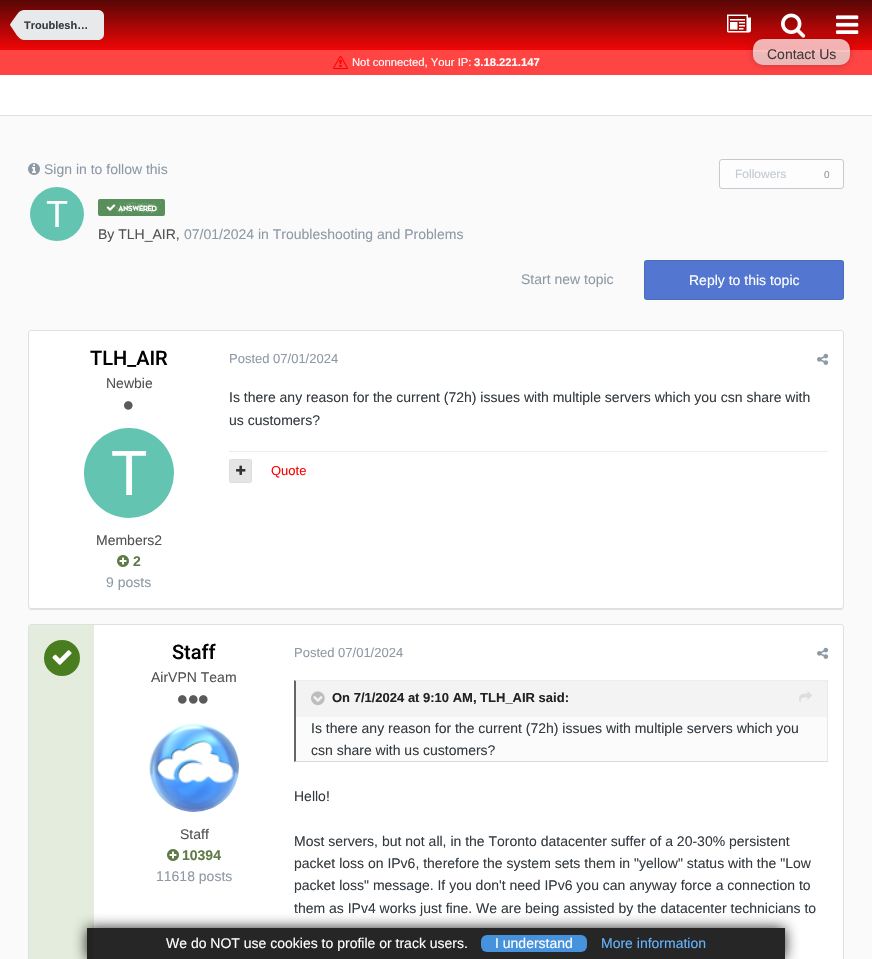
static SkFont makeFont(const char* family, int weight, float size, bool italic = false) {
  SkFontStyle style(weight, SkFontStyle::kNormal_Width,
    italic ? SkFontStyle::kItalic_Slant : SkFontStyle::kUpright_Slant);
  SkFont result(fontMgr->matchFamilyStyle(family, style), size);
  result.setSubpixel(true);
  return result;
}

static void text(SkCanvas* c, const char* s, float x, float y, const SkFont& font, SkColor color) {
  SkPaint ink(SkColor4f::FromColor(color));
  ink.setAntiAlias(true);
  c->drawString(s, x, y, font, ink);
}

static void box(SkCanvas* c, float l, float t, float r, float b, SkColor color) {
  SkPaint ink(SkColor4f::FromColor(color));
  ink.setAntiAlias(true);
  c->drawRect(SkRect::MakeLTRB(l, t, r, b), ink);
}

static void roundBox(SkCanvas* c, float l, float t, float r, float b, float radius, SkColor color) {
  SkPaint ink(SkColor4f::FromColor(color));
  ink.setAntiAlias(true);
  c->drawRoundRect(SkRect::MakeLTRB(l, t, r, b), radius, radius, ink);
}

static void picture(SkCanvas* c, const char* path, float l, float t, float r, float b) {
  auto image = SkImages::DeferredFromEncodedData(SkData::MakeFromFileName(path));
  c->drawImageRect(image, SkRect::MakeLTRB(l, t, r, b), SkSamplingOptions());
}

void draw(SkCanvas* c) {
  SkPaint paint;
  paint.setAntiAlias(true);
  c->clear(0xfffafafa);
  box(c, 0, 115, 872, 116, 0xffe1e1e1);
  {
    const SkColor colors[] = {0xff570606, 0xfff10606};
    const float stops[] = {0, 1};
    const SkPoint ends[] = {{436, 0}, {436, 50}};
    paint.setShader(SkGradientShader::MakeLinear(ends, colors, stops, 2, SkTileMode::kClamp));
    paint.setAlpha(255);
  }
  c->drawRect(SkRect::MakeLTRB(0, 0, 872, 50), paint);
  paint.setShader(nullptr);
  paint.setColor(0xffe8e9eb);
  c->drawPath(SkPathBuilder().moveTo(24, 10).lineTo(98, 10).cubicTo(101.5f, 10, 104, 12.5f, 104, 16).lineTo(104, 34).cubicTo(104, 37.5f, 101.5f, 40, 98, 40).lineTo(24, 40).close().detach(), paint);
  c->drawPath(SkPathBuilder().moveTo(24, 25).lineTo(24, 40).cubicTo(22, 40, 19.5f, 38.5f, 17, 35.5f).lineTo(10, 25).close().moveTo(24, 25).lineTo(10, 25).cubicTo(10, 24, 18.5f, 12.5f, 19, 12).cubicTo(20.5f, 11, 22, 10, 24, 10).close().detach(), paint);
  SkFont face1 = makeFont("Liberation Sans", 700, 11);
  text(c, "Troublesh…", 24, 29, face1, 0xff353c41);
  picture(c, "img_01.png", 727, 14, 751, 33);
  picture(c, "img_02.png", 781, 13, 806, 38);
  picture(c, "img_03.png", 836, 15, 859, 34);
  box(c, 0, 75, 872, 115, 0xffffffff);
  box(c, 0, 50, 872, 75, 0xffff4444);
  c->save();
  c->clipPath(SkPathBuilder(SkPathFillType::kEvenOdd).moveTo(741, 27).lineTo(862, 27).lineTo(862, 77).lineTo(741, 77).close().moveTo(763, 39).lineTo(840, 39).cubicTo(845.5f, 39, 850, 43.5f, 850, 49).lineTo(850, 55).cubicTo(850, 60.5f, 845.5f, 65, 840, 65).lineTo(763, 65).cubicTo(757.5f, 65, 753, 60.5f, 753, 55).lineTo(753, 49).cubicTo(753, 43.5f, 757.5f, 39, 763, 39).close().detach(), true);
  paint.setColor(0x36000000);
  paint.setMaskFilter(SkMaskFilter::MakeBlur(kNormal_SkBlurStyle, 3.5f));
  c->drawRoundRect(SkRect::MakeLTRB(753, 39, 850, 65), 10, 10, paint);
  paint.setMaskFilter(nullptr);
  c->restore();
  roundBox(c, 753, 39, 850, 65, 10, 0xb3ffffff);
  {
    const SkColor colors[] = {0x00000000, 0x08000000, 0x12000000, 0x14000000};
    const float stops[] = {0, 0.5f, 0.51f, 1};
    const SkPoint ends[] = {{802, 39}, {802, 65}};
    paint.setShader(SkGradientShader::MakeLinear(ends, colors, stops, 4, SkTileMode::kClamp));
    paint.setAlpha(255);
  }
  c->drawRoundRect(SkRect::MakeLTRB(753, 39, 850, 65), 10, 10, paint);
  SkFont face2 = makeFont("Liberation Sans", 400, 14);
  text(c, "Contact Us", 767, 59, face2, 0xff483838);
  picture(c, "img_04.png", 333, 56, 348, 69);
  SkFont face3 = makeFont("Liberation Sans", 400, 11.25f);
  text(c, "Not connected, Your IP:", 352, 66, face3, 0xffffffff);
  SkFont face4 = makeFont("Liberation Sans", 700, 11.25f);
  text(c, "3.18.221.147", 474, 66, face4, 0xffffffff);
  picture(c, "img_05.png", 28, 163, 40, 175);
  text(c, "Sign in to follow this", 44, 174, face2, 0xff8d9aa6);
  paint.setShader(nullptr);
  paint.setColor(0xfffdfdfd);
  c->drawRoundRect(SkRect::MakeLTRB(719.5f, 159.5f, 843.5f, 188.5f), 2.5f, 2.5f, paint);
  paint.setStyle(SkPaint::kStroke_Style);
  paint.setStrokeWidth(1);
  paint.setColor(0xffc4cad0);
  c->drawRoundRect(SkRect::MakeLTRB(719.5f, 159.5f, 843.5f, 188.5f), 2.5f, 2.5f, paint);
  SkFont face5 = makeFont("Liberation Sans", 400, 12);
  text(c, "Followers", 735, 178, face5, 0xffc4cad0);
  SkFont face6 = makeFont("Liberation Sans", 400, 10);
  text(c, "0", 824, 178, face6, 0xff979797);
  paint.setStyle(SkPaint::kFill_Style);
  paint.setColor(0xffffffff);
  c->drawCircle(57, 214, 27, paint);
  picture(c, "img_06.png", 30, 187, 84, 241);
  roundBox(c, 98, 199, 165, 216, 2, 0xff598f5b);
  picture(c, "img_07.png", 106, 204, 116, 211);
  SkFont face7 = makeFont("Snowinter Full", 400, 10);
  text(c, "ANSWERED", 118, 211, face7, 0xffffffff);
  text(c, "By TLH_AIR,", 98, 239, face2, 0xff525252);
  text(c, "07/01/2024 in Troubleshooting and Problems", 184, 239, face2, 0xff8d9aa6);
  text(c, "Start new topic", 521, 284, face2, 0xff8d9aa6);
  roundBox(c, 644, 260, 844, 300, 3, 0xff5377d0);
  paint.setStyle(SkPaint::kStroke_Style);
  paint.setColor(0x1a000000);
  c->drawRoundRect(SkRect::MakeLTRB(644.5f, 260.5f, 843.5f, 299.5f), 2.5f, 2.5f, paint);
  text(c, "Reply to this topic", 689, 285, face2, 0xffffffff);
  paint.setStyle(SkPaint::kFill_Style);
  paint.setColor(0xffe1e1e1);
  c->drawPath(SkPathBuilder().moveTo(28, 606).cubicTo(28, 608, 29, 610, 31, 610).lineTo(841, 610).cubicTo(843, 610, 844, 608, 844, 606).cubicTo(844, 608, 843, 609, 841, 609).lineTo(31, 609).cubicTo(29, 609, 28, 608, 28, 606).close().detach(), paint);
  paint.setColor(0xffffffff);
  c->drawRoundRect(SkRect::MakeLTRB(28.5f, 330.5f, 843.5f, 608.5f), 2.5f, 2.5f, paint);
  paint.setStyle(SkPaint::kStroke_Style);
  paint.setColor(0xffe0e0e0);
  c->drawRoundRect(SkRect::MakeLTRB(28.5f, 330.5f, 843.5f, 608.5f), 2.5f, 2.5f, paint);
  SkFont face8 = makeFont("Roboto", 500, 20);
  text(c, "TLH_AIR", 90, 365, face8, 0xff000000);
  text(c, "Newbie", 106, 388, face2, 0xff525252);
  picture(c, "img_08.png", 124, 401, 133, 410);
  picture(c, "img_09.png", 84, 428, 174, 518);
  text(c, "Members2", 96, 545, face2, 0xff525252);
  picture(c, "img_10.png", 117, 555, 129, 567);
  SkFont face9 = makeFont("Liberation Sans", 700, 14);
  text(c, "2", 133, 566, face9, 0xff5f7a47);
  text(c, "9 posts", 106, 587, face2, 0xff8d9aa6);
  SkFont face10 = makeFont("Liberation Sans", 400, 13);
  text(c, "Posted 07/01/2024", 229, 363, face10, 0xff8d9aa6);
  picture(c, "img_11.png", 817, 353, 829, 365);
  text(c, "Is there any reason for the current (72h) issues with multiple servers which you csn share with", 229, 402, face2, 0xff353c41);
  text(c, "us customers?", 229, 425, face2, 0xff353c41);
  box(c, 229, 451, 828, 452, 0xffececec);
  roundBox(c, 229, 459, 252, 483, 3, 0xffe5e5e5);
  paint.setColor(0x08000000);
  c->drawRect(SkRect::MakeLTRB(229.5f, 459.5f, 251.5f, 482.5f), paint);
  picture(c, "img_12.png", 236, 465, 246, 475);
  text(c, "Quote", 271, 475, face10, 0xffff0000);
  paint.setStyle(SkPaint::kFill_Style);
  paint.setColor(0xffffffff);
  c->drawRoundRect(SkRect::MakeLTRB(28.5f, 624.5f, 843.5f, 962.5f), 2.5f, 2.5f, paint);
  paint.setStyle(SkPaint::kStroke_Style);
  paint.setColor(0xffe0e0e0);
  c->drawRoundRect(SkRect::MakeLTRB(28.5f, 624.5f, 843.5f, 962.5f), 2.5f, 2.5f, paint);
  box(c, 29, 625, 94, 959, 0xffe4ecdd);
  paint.setStyle(SkPaint::kFill_Style);
  paint.setColor(0xff4a7c20);
  c->drawCircle(62, 658, 18, paint);
  picture(c, "img_13.png", 52, 650, 72, 665);
  text(c, "Staff", 172, 659, face8, 0xff000000);
  text(c, "AirVPN Team", 151, 682, face2, 0xff525252);
  picture(c, "img_08.png", 178, 695, 187, 704);
  picture(c, "img_08.png", 189, 695, 198, 704);
  picture(c, "img_08.png", 199, 695, 208, 704);
  picture(c, "img_14.png", 149, 723, 239, 812);
  text(c, "Staff", 180, 839, face2, 0xff525252);
  picture(c, "img_10.png", 167, 849, 179, 861);
  text(c, "10394", 182, 860, face9, 0xff5f7a47);
  text(c, "11618 posts", 156, 881, face2, 0xff8d9aa6);
  text(c, "Posted 07/01/2024", 294, 657, face10, 0xff8d9aa6);
  picture(c, "img_11.png", 817, 647, 829, 659);
  box(c, 296, 717, 827, 761, 0xfffbfbfb);
  paint.setColor(0xffededed);
  c->drawPath(SkPathBuilder().moveTo(294, 680).lineTo(828, 680).lineTo(827, 681).lineTo(296, 681).close().detach(), paint);
  box(c, 827, 680, 828, 762, 0xffe8e8e8);
  paint.setColor(0xffdbdbdb);
  c->drawPath(SkPathBuilder().moveTo(828, 762).lineTo(294, 762).lineTo(296, 761).lineTo(827, 761).close().detach(), paint);
  paint.setColor(0xff666666);
  c->drawPath(SkPathBuilder().moveTo(294, 762).lineTo(294, 680).lineTo(296, 681).lineTo(296, 761).close().detach(), paint);
  box(c, 296, 681, 827, 717, 0xfff3f3f3);
  picture(c, "img_15.png", 311, 691, 325, 706);
  SkFont face11 = makeFont("Liberation Sans", 700, 13);
  text(c, "On 7/1/2024 at 9:10 AM, TLH_AIR said:", 332, 702, face11, 0xff222222);
  picture(c, "img_16.png", 799, 691, 812, 703);
  text(c, "Is there any reason for the current (72h) issues with multiple servers which you", 311, 733, face2, 0xff353c41);
  text(c, "csn share with us customers?", 311, 755, face2, 0xff353c41);
  text(c, "Hello!", 294, 801, face2, 0xff353c41);
  text(c, "Most servers, but not all, in the Toronto datacenter suffer of a 20-30% persistent", 294, 846, face2, 0xff353c41);
  text(c, "packet loss on IPv6, therefore the system sets them in \"yellow\" status with the \"Low", 294, 868, face2, 0xff353c41);
  text(c, "packet loss\" message. If you don't need IPv6 you can anyway force a connection to", 294, 890, face2, 0xff353c41);
  text(c, "them as IPv4 works just fine. We are being assisted by the datacenter technicians to", 294, 913, face2, 0xff353c41);
  c->save();
  c->clipPath(SkPathBuilder(SkPathFillType::kEvenOdd).moveTo(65, 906).lineTo(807, 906).lineTo(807, 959).lineTo(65, 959).close().moveTo(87, 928).lineTo(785, 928).lineTo(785, 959).lineTo(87, 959).close().detach(), true);
  paint.setColor(0xd9000000);
  paint.setMaskFilter(SkMaskFilter::MakeBlur(kNormal_SkBlurStyle, 7));
  c->drawRect(SkRect::MakeLTRB(87, 928, 785, 959), paint);
  paint.setMaskFilter(nullptr);
  c->restore();
  box(c, 87, 928, 785, 959, 0xd9000000);
  text(c, "We do NOT use cookies to profile or track users.", 166, 948, face2, 0xffffffff);
  roundBox(c, 481, 935, 587, 952, 6, 0xd94ba5fc);
  text(c, "I understand", 495, 948, face2, 0xffffffff);
  text(c, "More information", 601, 948, face2, 0xff66b3fc);
}
